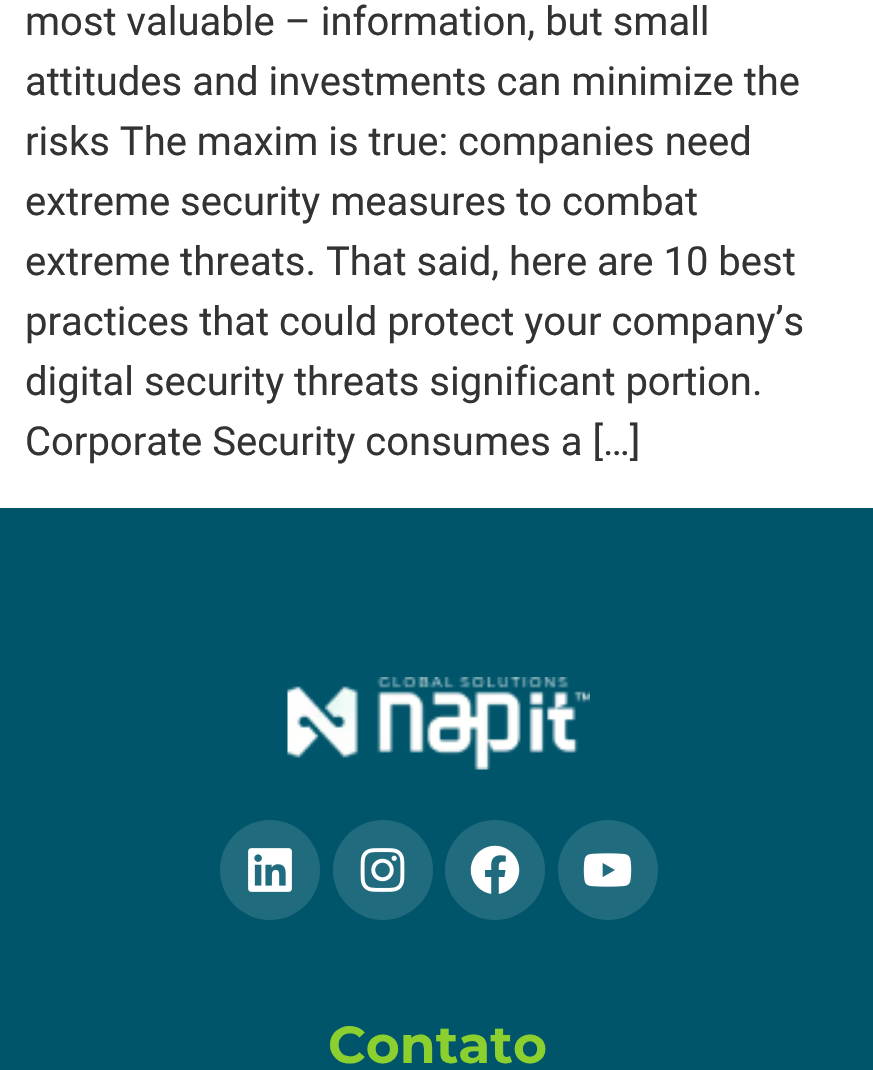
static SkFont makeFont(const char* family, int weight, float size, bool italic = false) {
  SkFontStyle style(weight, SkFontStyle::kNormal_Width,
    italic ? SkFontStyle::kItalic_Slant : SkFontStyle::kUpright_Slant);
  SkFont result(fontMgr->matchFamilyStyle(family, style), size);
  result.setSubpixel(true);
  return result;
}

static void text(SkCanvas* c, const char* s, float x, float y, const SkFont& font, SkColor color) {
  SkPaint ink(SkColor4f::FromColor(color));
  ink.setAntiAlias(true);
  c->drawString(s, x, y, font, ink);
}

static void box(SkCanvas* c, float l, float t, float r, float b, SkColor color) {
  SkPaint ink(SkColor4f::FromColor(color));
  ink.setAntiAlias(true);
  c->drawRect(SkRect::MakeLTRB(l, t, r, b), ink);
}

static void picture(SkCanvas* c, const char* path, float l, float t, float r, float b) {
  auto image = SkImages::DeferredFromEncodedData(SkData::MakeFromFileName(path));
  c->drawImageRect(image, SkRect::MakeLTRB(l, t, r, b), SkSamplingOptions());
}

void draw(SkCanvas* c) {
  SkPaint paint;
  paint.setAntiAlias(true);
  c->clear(0xffffffff);
  SkFont face1 = makeFont("Roboto", 400, 40);
  text(c, "most valuable – information, but small", 25, 35, face1, 0xff333333);
  text(c, "attitudes and investments can minimize the", 25, 95, face1, 0xff333333);
  text(c, "risks The maxim is true: companies need", 25, 155, face1, 0xff333333);
  text(c, "extreme security measures to combat", 25, 215, face1, 0xff333333);
  text(c, "extreme threats. That said, here are 10 best", 25, 275, face1, 0xff333333);
  text(c, "practices that could protect your company’s", 25, 335, face1, 0xff333333);
  text(c, "digital security threats significant portion.", 25, 395, face1, 0xff333333);
  text(c, "Corporate Security consumes a […]", 25, 455, face1, 0xff333333);
  box(c, 0, 508, 873, 1070, 0xff00556b);
  picture(c, "img_01.png", 287, 677, 590, 770);
  paint.setColor(0xff216b7e);
  c->drawCircle(270, 870, 50, paint);
  picture(c, "img_02.png", 248, 848, 292, 892);
  c->drawCircle(383, 870, 50, paint);
  picture(c, "img_03.png", 360, 848, 405, 892);
  c->drawCircle(495, 870, 50, paint);
  picture(c, "img_04.png", 470, 845, 520, 894);
  c->drawCircle(608, 870, 50, paint);
  picture(c, "img_05.png", 583, 853, 632, 887);
  SkFont face2 = makeFont("Montserrat", 700, 52);
  text(c, "Contato", 328, 1063, face2, 0xff8cd030);
}
